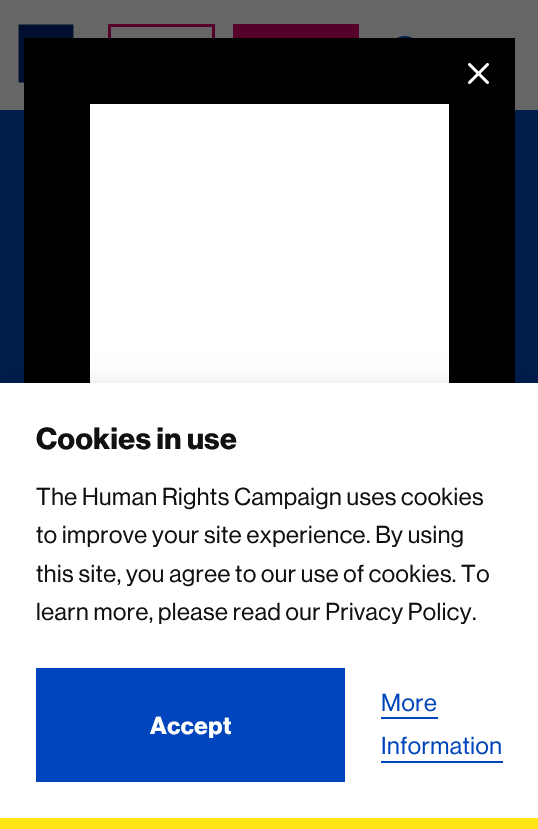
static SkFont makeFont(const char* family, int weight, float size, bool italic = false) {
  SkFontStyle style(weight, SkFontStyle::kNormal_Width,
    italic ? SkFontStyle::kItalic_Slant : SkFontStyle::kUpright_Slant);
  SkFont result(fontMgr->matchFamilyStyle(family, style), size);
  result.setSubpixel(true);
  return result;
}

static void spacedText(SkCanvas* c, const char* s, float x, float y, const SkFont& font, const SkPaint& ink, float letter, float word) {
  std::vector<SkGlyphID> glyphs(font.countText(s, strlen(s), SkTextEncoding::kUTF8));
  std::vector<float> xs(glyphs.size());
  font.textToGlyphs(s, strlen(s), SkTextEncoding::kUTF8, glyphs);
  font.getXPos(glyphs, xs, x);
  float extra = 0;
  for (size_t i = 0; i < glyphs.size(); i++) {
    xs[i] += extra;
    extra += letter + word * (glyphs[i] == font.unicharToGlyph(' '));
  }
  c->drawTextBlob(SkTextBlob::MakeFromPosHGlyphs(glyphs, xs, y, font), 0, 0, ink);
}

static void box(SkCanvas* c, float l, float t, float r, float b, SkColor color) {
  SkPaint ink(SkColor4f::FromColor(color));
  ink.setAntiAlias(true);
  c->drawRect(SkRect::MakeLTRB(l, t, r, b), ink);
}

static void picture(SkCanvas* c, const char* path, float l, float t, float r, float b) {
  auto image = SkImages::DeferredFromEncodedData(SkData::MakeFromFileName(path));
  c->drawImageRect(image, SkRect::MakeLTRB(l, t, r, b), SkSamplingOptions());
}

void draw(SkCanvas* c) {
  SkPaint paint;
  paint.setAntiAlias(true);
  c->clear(0xff666666);
  box(c, 18, 24, 74, 83, 0xff000f30);
  c->save();
  c->clipRect(SkRect::MakeLTRB(18, 24, 75, 84));
  paint.setStyle(SkPaint::kStroke_Style);
  paint.setStrokeWidth(1.1f);
  paint.setColor(0xff666666);
  c->drawPath(SkPathBuilder().moveTo(18, 24).lineTo(74, 24).lineTo(74, 83).lineTo(18, 83).close().detach(), paint);
  c->restore();
  paint.setStrokeWidth(3);
  paint.setColor(0xff560129);
  c->drawRect(SkRect::MakeLTRB(109.5f, 25.5f, 213.5f, 84.5f), paint);
  box(c, 0, 110, 538, 383, 0xff001c4b);
  box(c, 24, 38, 515, 383, 0xff000000);
  picture(c, "img_01.png", 468, 63, 489, 84);
  box(c, 90, 104, 449, 383, 0xffffffff);
  box(c, 233, 24, 359, 38, 0xff560129);
  picture(c, "img_02.png", 397, 36, 413, 38);
  paint.setStyle(SkPaint::kFill_Style);
  paint.setColor(0x4d000000);
  paint.setMaskFilter(SkMaskFilter::MakeBlur(kNormal_SkBlurStyle, 15));
  c->drawRect(SkRect::MakeLTRB(0, 398, 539, 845), paint);
  paint.setMaskFilter(nullptr);
  box(c, 0, 383, 538, 818, 0xffffffff);
  box(c, 0, 818, 538, 829, 0xffffe614);
  SkFont face1 = makeFont("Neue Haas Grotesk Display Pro", 700, 30);
  paint.setColor(0xff111111);
  spacedText(c, "Cookies in use", 36, 449, face1, paint, 0.5f, 0);
  SkFont face2 = makeFont("Neue Haas Grotesk Display Pro", 500, 24);
  spacedText(c, "The Human Rights Campaign uses cookies", 36, 505, face2, paint, 0.5f, 0);
  spacedText(c, "to improve your site experience. By using", 36, 543, face2, paint, 0.5f, 0);
  spacedText(c, "this site, you agree to our use of cookies. To", 36, 582, face2, paint, 0.5f, 0);
  spacedText(c, "learn more, please read our Privacy Policy.", 36, 620, face2, paint, 0.5f, 0);
  box(c, 36, 668, 345, 782, 0xff0045bb);
  SkFont face3 = makeFont("Neue Haas Grotesk Display Pro", 700, 24);
  paint.setColor(0xffffffff);
  spacedText(c, "Accept", 150, 734, face3, paint, 0.5f, 0);
  paint.setColor(0xff0045bb);
  spacedText(c, "More", 381, 711, face2, paint, 0.5f, 0);
  box(c, 381, 717, 438, 719, 0xff0045bb);
  spacedText(c, "Information", 381, 754, face2, paint, 0.5f, 0);
  box(c, 381, 761, 503, 763, 0xff0045bb);
}
